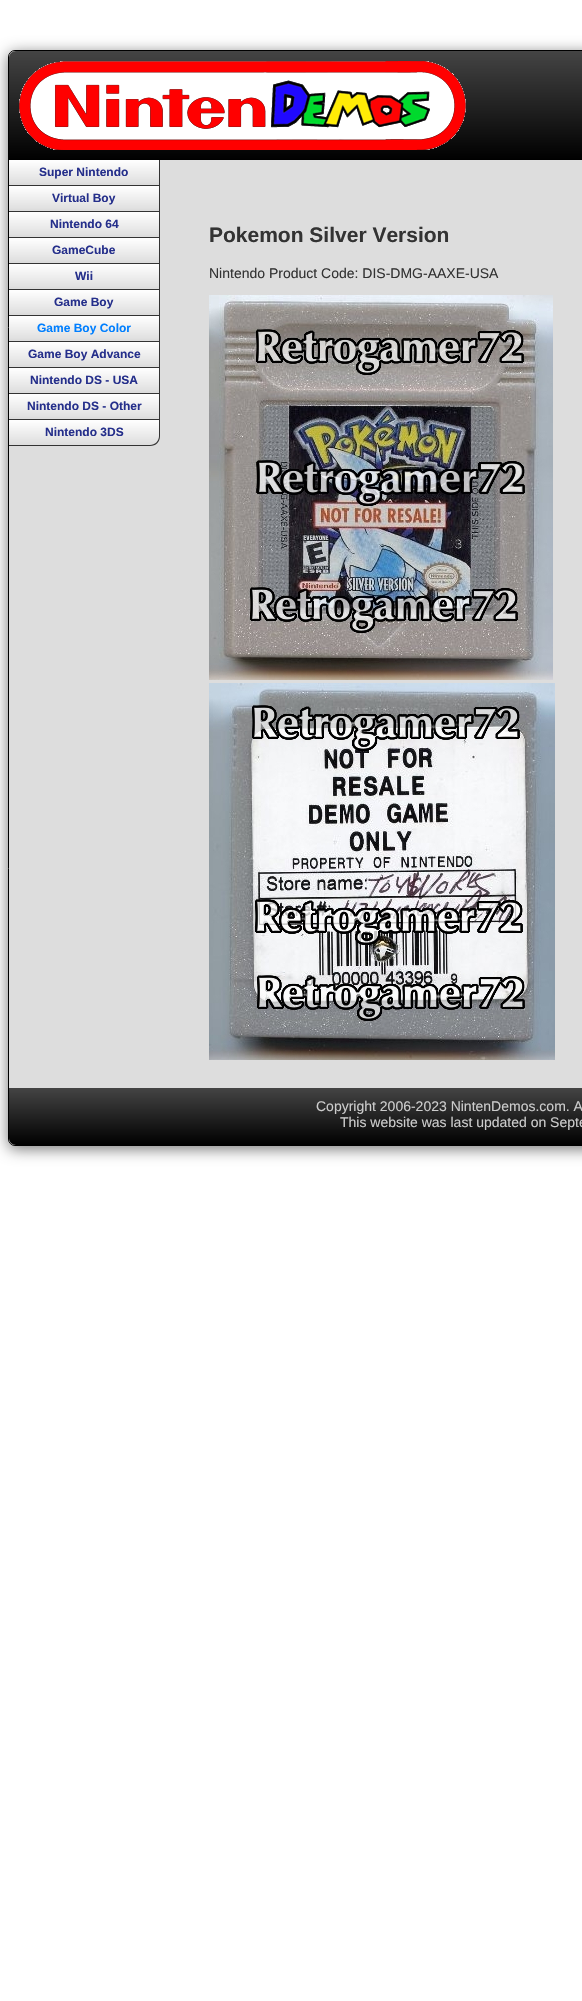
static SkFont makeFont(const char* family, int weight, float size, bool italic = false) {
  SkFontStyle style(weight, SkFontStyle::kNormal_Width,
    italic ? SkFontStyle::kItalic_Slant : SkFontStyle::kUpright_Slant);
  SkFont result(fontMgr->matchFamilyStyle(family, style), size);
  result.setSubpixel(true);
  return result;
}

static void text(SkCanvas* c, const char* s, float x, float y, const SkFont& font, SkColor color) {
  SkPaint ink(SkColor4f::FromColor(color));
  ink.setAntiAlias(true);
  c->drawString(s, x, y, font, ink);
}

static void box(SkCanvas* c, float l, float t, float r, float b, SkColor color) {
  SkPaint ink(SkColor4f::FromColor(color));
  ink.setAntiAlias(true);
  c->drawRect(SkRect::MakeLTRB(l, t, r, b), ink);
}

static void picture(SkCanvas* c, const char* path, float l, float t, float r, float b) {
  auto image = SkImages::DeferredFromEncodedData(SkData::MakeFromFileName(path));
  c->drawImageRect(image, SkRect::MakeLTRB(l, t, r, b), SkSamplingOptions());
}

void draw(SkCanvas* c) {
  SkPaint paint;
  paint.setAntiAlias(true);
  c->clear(0xffffffff);
  paint.setColor(0xff777777);
  paint.setMaskFilter(SkMaskFilter::MakeBlur(kNormal_SkBlurStyle, 7.5f));
  c->drawRoundRect(SkRect::MakeLTRB(8, 53, 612, 1149), 7, 7, paint);
  paint.setMaskFilter(nullptr);
  paint.setColor(0xffdddddd);
  c->drawRoundRect(SkRect::MakeLTRB(8.5f, 50.5f, 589.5f, 1145.5f), 6.5f, 6.5f, paint);
  paint.setStyle(SkPaint::kStroke_Style);
  paint.setStrokeWidth(1);
  paint.setColor(0xff000000);
  c->drawRoundRect(SkRect::MakeLTRB(8.5f, 50.5f, 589.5f, 1145.5f), 6.5f, 6.5f, paint);
  paint.setStyle(SkPaint::kFill_Style);
  {
    const SkColor colors[] = {0xff444444, 0xff000000};
    const float stops[] = {0, 1};
    const SkPoint ends[] = {{9, 51}, {9, 160}};
    paint.setShader(SkGradientShader::MakeLinear(ends, colors, stops, 2, SkTileMode::kClamp));
    paint.setAlpha(255);
  }
  c->drawPath(SkPathBuilder().moveTo(16, 51).lineTo(582, 51).cubicTo(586, 51, 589, 54, 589, 58).lineTo(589, 160).lineTo(9, 160).lineTo(9, 58).cubicTo(9, 54, 12, 51, 16, 51).close().detach(), paint);
  picture(c, "img_01.png", 19, 61, 466, 150);
  {
    const SkColor colors[] = {0xffffffff, 0xffdddddd};
    const float stops[] = {0, 1};
    const SkPoint ends[] = {{9, 160}, {9, 185}};
    paint.setShader(SkGradientShader::MakeLinear(ends, colors, stops, 2, SkTileMode::kClamp));
    paint.setAlpha(255);
  }
  c->drawRect(SkRect::MakeLTRB(9, 160, 159, 183), paint);
  box(c, 159, 160, 160, 420, 0xff333333);
  box(c, 9, 185, 160, 186, 0xff333333);
  SkFont face1 = makeFont("Liberation Sans", 700, 12);
  text(c, "Super Nintendo", 39, 176, face1, 0xff252f8b);
  {
    const SkColor colors[] = {0xffffffff, 0xffdddddd};
    const float stops[] = {0, 1};
    const SkPoint ends[] = {{9, 186}, {9, 211}};
    paint.setShader(SkGradientShader::MakeLinear(ends, colors, stops, 2, SkTileMode::kClamp));
    paint.setAlpha(255);
  }
  c->drawRect(SkRect::MakeLTRB(9, 186, 159, 209), paint);
  box(c, 9, 211, 160, 212, 0xff333333);
  text(c, "Virtual Boy", 52, 202, face1, 0xff252f8b);
  {
    const SkColor colors[] = {0xffffffff, 0xffdddddd};
    const float stops[] = {0, 1};
    const SkPoint ends[] = {{9, 212}, {9, 237}};
    paint.setShader(SkGradientShader::MakeLinear(ends, colors, stops, 2, SkTileMode::kClamp));
    paint.setAlpha(255);
  }
  c->drawRect(SkRect::MakeLTRB(9, 212, 159, 235), paint);
  box(c, 9, 237, 160, 238, 0xff333333);
  text(c, "Nintendo 64", 50, 228, face1, 0xff252f8b);
  {
    const SkColor colors[] = {0xffffffff, 0xffdddddd};
    const float stops[] = {0, 1};
    const SkPoint ends[] = {{9, 238}, {9, 263}};
    paint.setShader(SkGradientShader::MakeLinear(ends, colors, stops, 2, SkTileMode::kClamp));
    paint.setAlpha(255);
  }
  c->drawRect(SkRect::MakeLTRB(9, 238, 159, 261), paint);
  box(c, 9, 263, 160, 264, 0xff333333);
  text(c, "GameCube", 52, 254, face1, 0xff252f8b);
  {
    const SkColor colors[] = {0xffffffff, 0xffdddddd};
    const float stops[] = {0, 1};
    const SkPoint ends[] = {{9, 264}, {9, 289}};
    paint.setShader(SkGradientShader::MakeLinear(ends, colors, stops, 2, SkTileMode::kClamp));
    paint.setAlpha(255);
  }
  c->drawRect(SkRect::MakeLTRB(9, 264, 159, 287), paint);
  box(c, 9, 289, 160, 290, 0xff333333);
  text(c, "Wii", 75, 280, face1, 0xff252f8b);
  {
    const SkColor colors[] = {0xffffffff, 0xffdddddd};
    const float stops[] = {0, 1};
    const SkPoint ends[] = {{9, 290}, {9, 315}};
    paint.setShader(SkGradientShader::MakeLinear(ends, colors, stops, 2, SkTileMode::kClamp));
    paint.setAlpha(255);
  }
  c->drawRect(SkRect::MakeLTRB(9, 290, 159, 313), paint);
  box(c, 9, 315, 160, 316, 0xff333333);
  text(c, "Game Boy", 54, 306, face1, 0xff252f8b);
  {
    const SkColor colors[] = {0xffffffff, 0xffdddddd};
    const float stops[] = {0, 1};
    const SkPoint ends[] = {{9, 316}, {9, 341}};
    paint.setShader(SkGradientShader::MakeLinear(ends, colors, stops, 2, SkTileMode::kClamp));
    paint.setAlpha(255);
  }
  c->drawRect(SkRect::MakeLTRB(9, 316, 159, 339), paint);
  box(c, 9, 341, 160, 342, 0xff333333);
  text(c, "Game Boy Color", 37, 332, face1, 0xff007fff);
  {
    const SkColor colors[] = {0xffffffff, 0xffdddddd};
    const float stops[] = {0, 1};
    const SkPoint ends[] = {{9, 342}, {9, 367}};
    paint.setShader(SkGradientShader::MakeLinear(ends, colors, stops, 2, SkTileMode::kClamp));
    paint.setAlpha(255);
  }
  c->drawRect(SkRect::MakeLTRB(9, 342, 159, 365), paint);
  box(c, 9, 367, 160, 368, 0xff333333);
  text(c, "Game Boy Advance", 28, 358, face1, 0xff252f8b);
  {
    const SkColor colors[] = {0xffffffff, 0xffdddddd};
    const float stops[] = {0, 1};
    const SkPoint ends[] = {{9, 368}, {9, 393}};
    paint.setShader(SkGradientShader::MakeLinear(ends, colors, stops, 2, SkTileMode::kClamp));
    paint.setAlpha(255);
  }
  c->drawRect(SkRect::MakeLTRB(9, 368, 159, 391), paint);
  box(c, 9, 393, 160, 394, 0xff333333);
  text(c, "Nintendo DS - USA", 30, 384, face1, 0xff252f8b);
  {
    const SkColor colors[] = {0xffffffff, 0xffdddddd};
    const float stops[] = {0, 1};
    const SkPoint ends[] = {{9, 394}, {9, 419}};
    paint.setShader(SkGradientShader::MakeLinear(ends, colors, stops, 2, SkTileMode::kClamp));
    paint.setAlpha(255);
  }
  c->drawRect(SkRect::MakeLTRB(9, 394, 159, 417), paint);
  box(c, 9, 419, 160, 420, 0xff333333);
  text(c, "Nintendo DS - Other", 27, 410, face1, 0xff252f8b);
  c->save();
  c->clipPath(SkPathBuilder().moveTo(9, 420).lineTo(160, 420).lineTo(160, 436).cubicTo(160, 441.5f, 155.5f, 446, 150, 446).lineTo(9, 446).close().detach(), true);
  {
    const SkColor colors[] = {0xffffffff, 0xffdddddd};
    const float stops[] = {0, 1};
    const SkPoint ends[] = {{9, 420}, {9, 445}};
    paint.setShader(SkGradientShader::MakeLinear(ends, colors, stops, 2, SkTileMode::kClamp));
    paint.setAlpha(255);
  }
  c->drawRect(SkRect::MakeLTRB(9, 420, 160, 445), paint);
  c->restore();
  paint.setShader(nullptr);
  paint.setColor(0xff333333);
  c->drawPath(SkPathBuilder(SkPathFillType::kEvenOdd).moveTo(9, 420).lineTo(160, 420).lineTo(160, 436).cubicTo(160, 442, 156, 446, 150, 446).lineTo(9, 446).close().moveTo(9, 420).lineTo(159, 420).lineTo(159, 436).cubicTo(159, 441, 155, 445, 150, 445).lineTo(9, 445).close().detach(), paint);
  text(c, "Nintendo 3DS", 45, 436, face1, 0xff252f8b);
  SkFont face2 = makeFont("Liberation Sans", 700, 21);
  text(c, "Pokemon Silver Version", 209, 242, face2, 0xff333333);
  SkFont face3 = makeFont("Liberation Sans", 400, 14);
  text(c, "Nintendo Product Code: DIS-DMG-AAXE-USA", 209, 278, face3, 0xff333333);
  picture(c, "img_02.png", 209, 295, 553, 680);
  picture(c, "img_03.png", 209, 683, 555, 1060);
  {
    const SkColor colors[] = {0xff444444, 0xff000000};
    const float stops[] = {0, 1};
    const SkPoint ends[] = {{9, 1088}, {9, 1145}};
    paint.setShader(SkGradientShader::MakeLinear(ends, colors, stops, 2, SkTileMode::kClamp));
    paint.setAlpha(255);
  }
  c->drawPath(SkPathBuilder().moveTo(9, 1088).lineTo(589, 1088).lineTo(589, 1138).cubicTo(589, 1142, 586, 1145, 582, 1145).lineTo(16, 1145).cubicTo(12, 1145, 9, 1142, 9, 1138).close().detach(), paint);
  text(c, "Copyright 2006-2023 NintenDemos.com. A", 316, 1111, face3, 0xffcccccc);
  text(c, "This website was last updated on Septe", 340, 1127, face3, 0xffcccccc);
}
